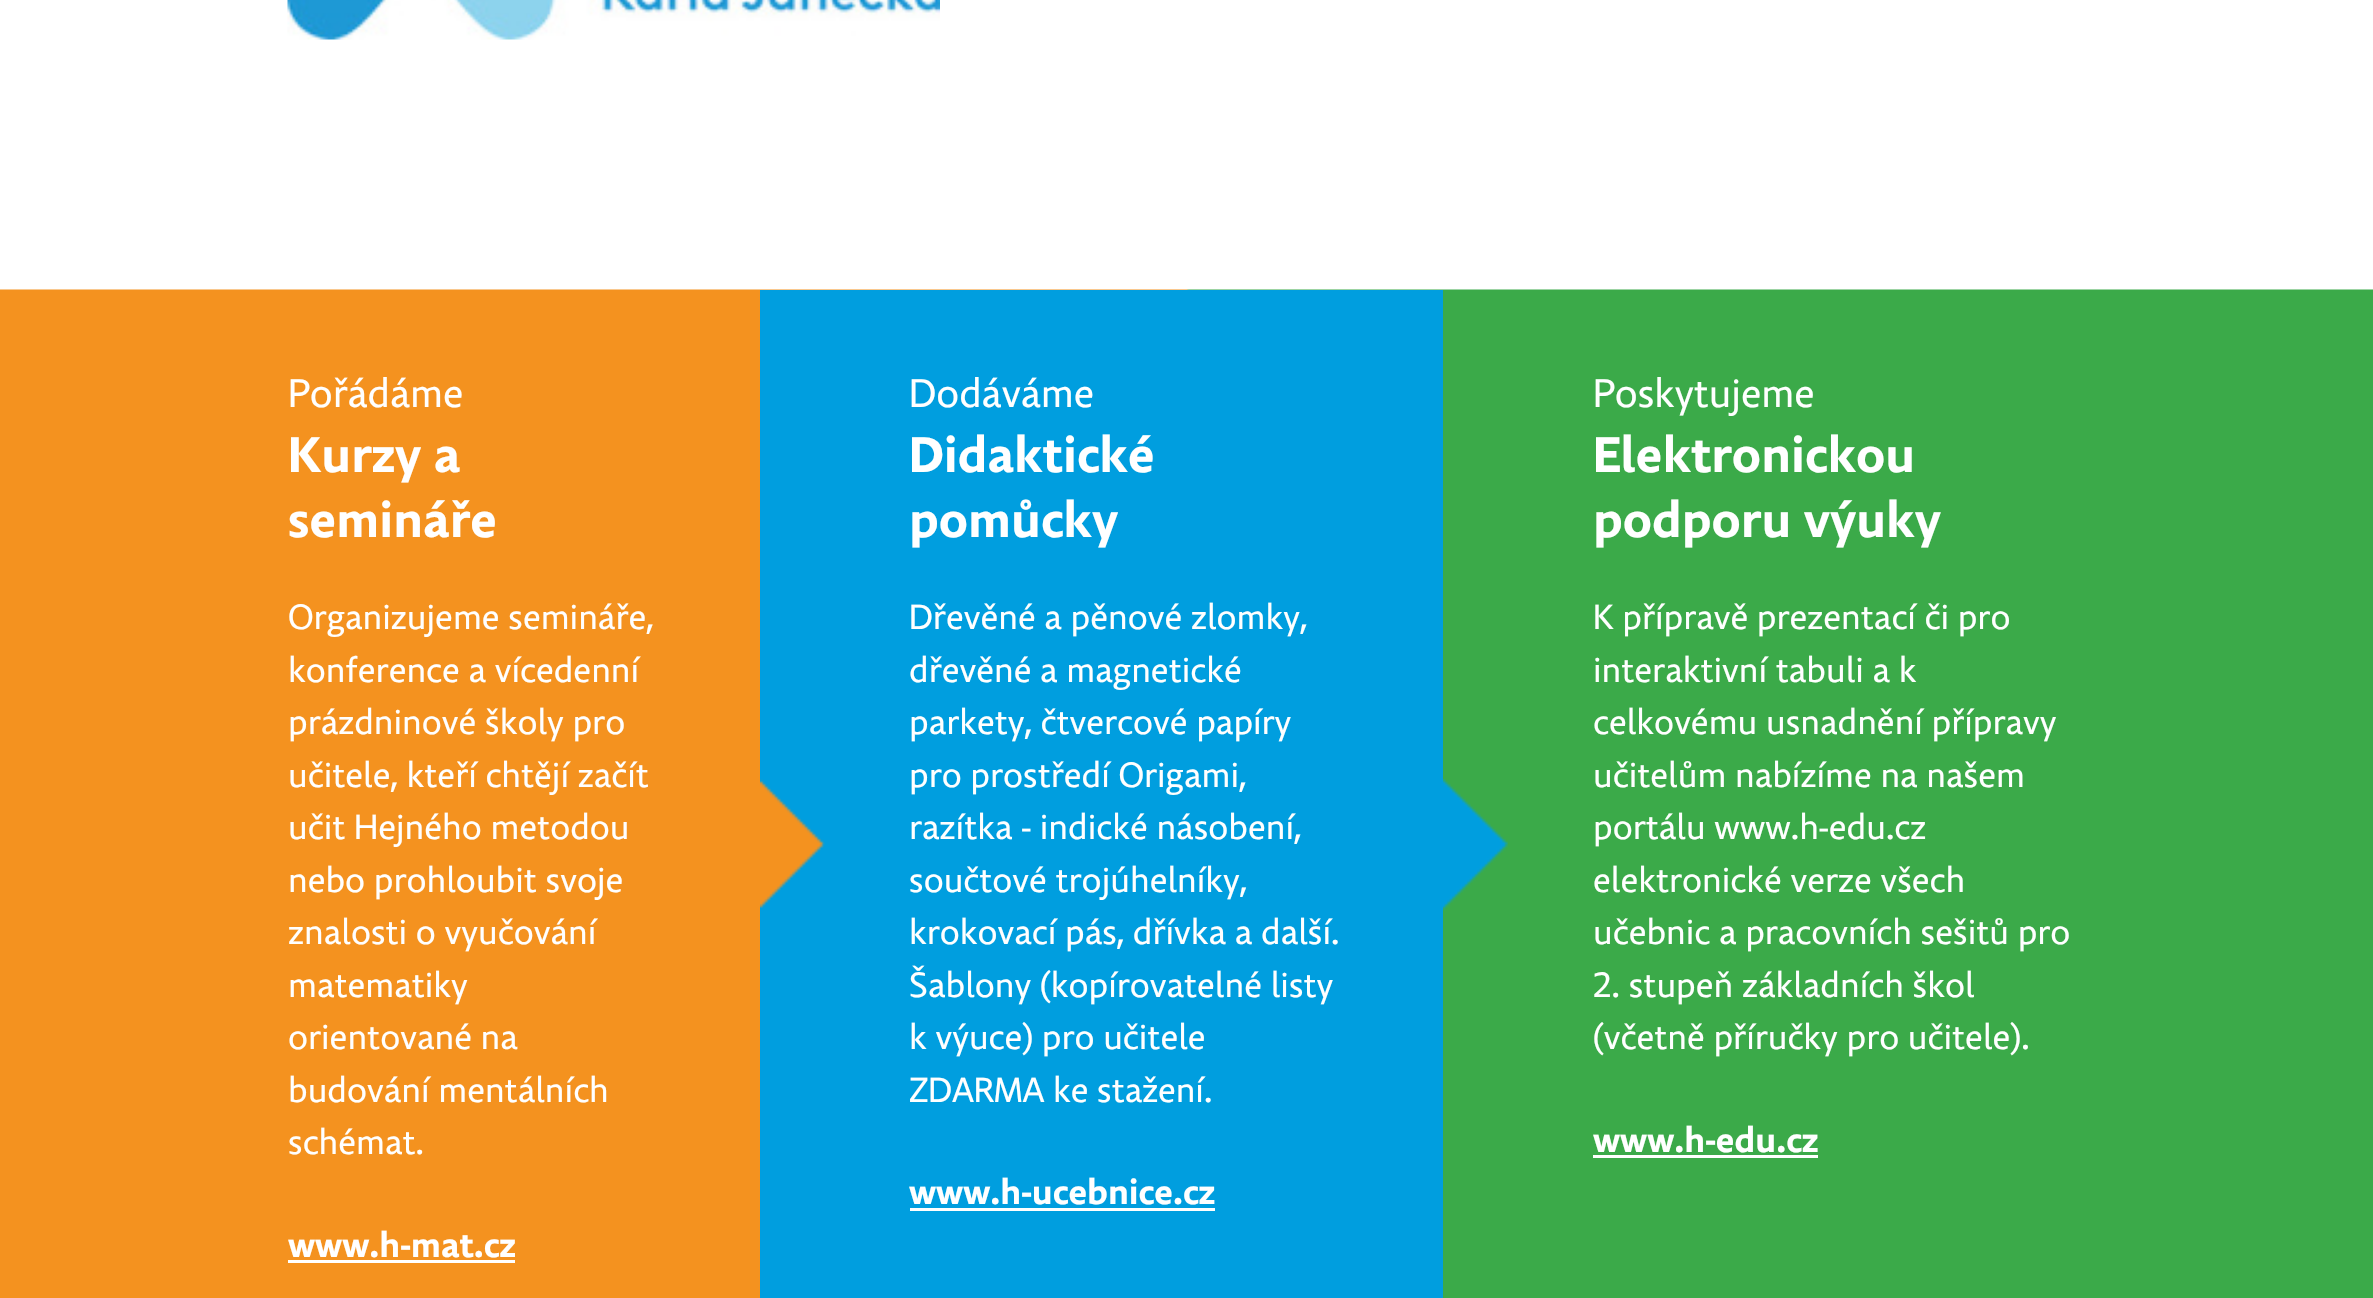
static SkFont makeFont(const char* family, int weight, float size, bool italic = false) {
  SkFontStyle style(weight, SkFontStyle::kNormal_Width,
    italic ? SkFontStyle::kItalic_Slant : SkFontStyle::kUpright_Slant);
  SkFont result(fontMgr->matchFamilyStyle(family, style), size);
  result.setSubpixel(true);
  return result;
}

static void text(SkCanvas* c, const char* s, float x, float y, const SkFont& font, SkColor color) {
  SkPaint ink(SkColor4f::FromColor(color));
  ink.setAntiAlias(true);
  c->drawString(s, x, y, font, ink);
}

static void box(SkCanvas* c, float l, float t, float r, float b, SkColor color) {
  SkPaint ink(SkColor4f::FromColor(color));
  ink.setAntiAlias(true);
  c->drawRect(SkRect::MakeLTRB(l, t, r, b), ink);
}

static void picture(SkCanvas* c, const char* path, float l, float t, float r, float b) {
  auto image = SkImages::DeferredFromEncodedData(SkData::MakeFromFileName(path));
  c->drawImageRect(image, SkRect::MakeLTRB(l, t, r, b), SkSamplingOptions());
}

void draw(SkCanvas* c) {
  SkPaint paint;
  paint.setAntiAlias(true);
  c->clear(0xffffffff);
  picture(c, "img_01.png", 287, 0, 940, 40);
  picture(c, "img_02.png", 0, 289, 2373, 1298);
  SkFont face1 = makeFont("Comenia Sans", 400, 40);
  text(c, "Pořádáme", 288, 407, face1, 0xffffffff);
  SkFont face2 = makeFont("Comenia Sans", 700, 50);
  text(c, "Kurzy a", 288, 472, face2, 0xffffffff);
  text(c, "semináře", 288, 537, face2, 0xffffffff);
  SkFont face3 = makeFont("Comenia Sans", 400, 35);
  text(c, "Organizujeme semináře,", 288, 629, face3, 0xffffffff);
  text(c, "konference a vícedenní", 288, 682, face3, 0xffffffff);
  text(c, "prázdninové školy pro", 288, 734, face3, 0xffffffff);
  text(c, "učitele, kteří chtějí začít", 288, 787, face3, 0xffffffff);
  text(c, "učit Hejného metodou", 288, 839, face3, 0xffffffff);
  text(c, "nebo prohloubit svoje", 288, 892, face3, 0xffffffff);
  text(c, "znalosti o vyučování", 288, 944, face3, 0xffffffff);
  text(c, "matematiky", 288, 997, face3, 0xffffffff);
  text(c, "orientované na", 288, 1049, face3, 0xffffffff);
  text(c, "budování mentálních", 288, 1102, face3, 0xffffffff);
  text(c, "schémat.", 288, 1154, face3, 0xffffffff);
  SkFont face4 = makeFont("Comenia Sans", 700, 35);
  text(c, "www.h-mat.cz", 288, 1257, face4, 0xffffffff);
  box(c, 288, 1260, 515, 1263, 0xffffffff);
  box(c, 760, 290, 1443, 1298, 0xff009edf);
  picture(c, "img_03.png", 760, 779, 825, 908);
  text(c, "Dodáváme", 909, 407, face1, 0xffffffff);
  text(c, "Didaktické", 909, 472, face2, 0xffffffff);
  text(c, "pomůcky", 909, 537, face2, 0xffffffff);
  text(c, "Dřevěné a pěnové zlomky,", 909, 629, face3, 0xffffffff);
  text(c, "dřevěné a magnetické", 909, 682, face3, 0xffffffff);
  text(c, "parkety, čtvercové papíry", 909, 734, face3, 0xffffffff);
  text(c, "pro prostředí Origami,", 909, 787, face3, 0xffffffff);
  text(c, "razítka - indické násobení,", 909, 839, face3, 0xffffffff);
  text(c, "součtové trojúhelníky,", 909, 892, face3, 0xffffffff);
  text(c, "krokovací pás, dřívka a další.", 909, 944, face3, 0xffffffff);
  text(c, "Šablony (kopírovatelné listy", 909, 997, face3, 0xffffffff);
  text(c, "k výuce) pro učitele", 909, 1049, face3, 0xffffffff);
  text(c, "ZDARMA ke stažení.", 909, 1102, face3, 0xffffffff);
  text(c, "www.h-ucebnice.cz", 909, 1204, face4, 0xffffffff);
  box(c, 910, 1208, 1215, 1211, 0xffffffff);
  picture(c, "img_04.png", 1443, 778, 1508, 911);
  text(c, "Poskytujeme", 1593, 407, face1, 0xffffffff);
  text(c, "Elektronickou", 1593, 472, face2, 0xffffffff);
  text(c, "podporu výuky", 1593, 537, face2, 0xffffffff);
  text(c, "K přípravě prezentací či pro", 1593, 629, face3, 0xffffffff);
  text(c, "interaktivní tabuli a k", 1593, 682, face3, 0xffffffff);
  text(c, "celkovému usnadnění přípravy", 1593, 734, face3, 0xffffffff);
  text(c, "učitelům nabízíme na našem", 1593, 787, face3, 0xffffffff);
  text(c, "portálu www.h-edu.cz", 1593, 839, face3, 0xffffffff);
  text(c, "elektronické verze všech", 1593, 892, face3, 0xffffffff);
  text(c, "učebnic a pracovních sešitů pro", 1593, 944, face3, 0xffffffff);
  text(c, "2. stupeň základních škol", 1593, 997, face3, 0xffffffff);
  text(c, "(včetně příručky pro učitele).", 1593, 1049, face3, 0xffffffff);
  text(c, "www.h-edu.cz", 1593, 1152, face4, 0xffffffff);
  box(c, 1593, 1155, 1818, 1158, 0xffffffff);
}
